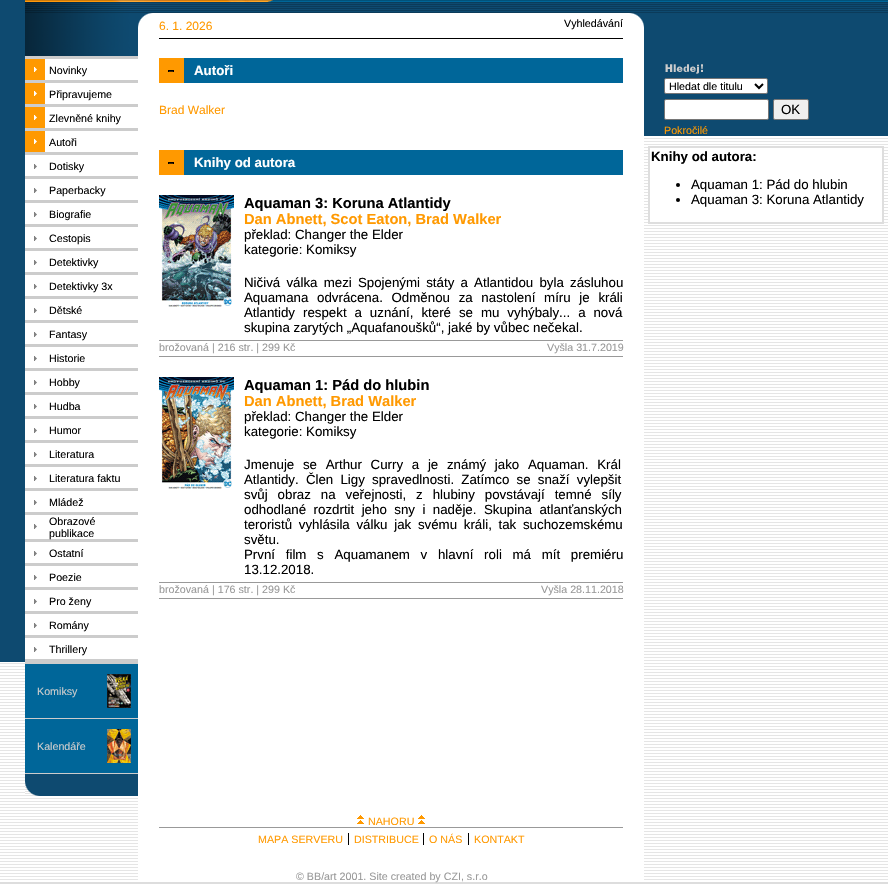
static SkFont makeFont(const char* family, int weight, float size, bool italic = false) {
  SkFontStyle style(weight, SkFontStyle::kNormal_Width,
    italic ? SkFontStyle::kItalic_Slant : SkFontStyle::kUpright_Slant);
  SkFont result(fontMgr->matchFamilyStyle(family, style), size);
  result.setSubpixel(true);
  return result;
}

static void text(SkCanvas* c, const char* s, float x, float y, const SkFont& font, SkColor color) {
  SkPaint ink(SkColor4f::FromColor(color));
  ink.setAntiAlias(true);
  c->drawString(s, x, y, font, ink);
}

static void spacedText(SkCanvas* c, const char* s, float x, float y, const SkFont& font, const SkPaint& ink, float letter, float word) {
  std::vector<SkGlyphID> glyphs(font.countText(s, strlen(s), SkTextEncoding::kUTF8));
  std::vector<float> xs(glyphs.size());
  font.textToGlyphs(s, strlen(s), SkTextEncoding::kUTF8, glyphs);
  font.getXPos(glyphs, xs, x);
  float extra = 0;
  for (size_t i = 0; i < glyphs.size(); i++) {
    xs[i] += extra;
    extra += letter + word * (glyphs[i] == font.unicharToGlyph(' '));
  }
  c->drawTextBlob(SkTextBlob::MakeFromPosHGlyphs(glyphs, xs, y, font), 0, 0, ink);
}

static void box(SkCanvas* c, float l, float t, float r, float b, SkColor color) {
  SkPaint ink(SkColor4f::FromColor(color));
  ink.setAntiAlias(true);
  c->drawRect(SkRect::MakeLTRB(l, t, r, b), ink);
}

static void picture(SkCanvas* c, const char* path, float l, float t, float r, float b) {
  auto image = SkImages::DeferredFromEncodedData(SkData::MakeFromFileName(path));
  c->drawImageRect(image, SkRect::MakeLTRB(l, t, r, b), SkSamplingOptions());
}

void draw(SkCanvas* c) {
  SkPaint paint;
  paint.setAntiAlias(true);
  c->clear(0xffffffff);
  picture(c, "img_01.png", 0, 37, 888, 882);
  box(c, 0, 0, 25, 662, 0xff0e4a70);
  picture(c, "img_02.png", 25, 0, 79, 2);
  picture(c, "img_03.png", 79, 0, 138, 2);
  picture(c, "img_04.png", 138, 0, 282, 2);
  picture(c, "img_05.png", 282, 0, 601, 2);
  picture(c, "img_06.png", 601, 0, 888, 2);
  picture(c, "img_07.png", 25, 2, 79, 13);
  picture(c, "img_08.png", 79, 2, 138, 13);
  picture(c, "img_09.png", 138, 2, 888, 13);
  picture(c, "img_10.png", 25, 13, 138, 38);
  picture(c, "img_11.png", 138, 13, 159, 37);
  SkFont face1 = makeFont("Liberation Sans", 400, 12);
  text(c, "6. 1. 2026", 159, 30, face1, 0xffff9900);
  SkFont face2 = makeFont("Liberation Sans", 400, 10.7f);
  text(c, "Vyhledávání", 564, 27, face2, 0xff000000);
  picture(c, "img_12.png", 623, 13, 644, 37);
  box(c, 644, 13, 888, 136, 0xff0e4a70);
  box(c, 138, 39, 644, 796, 0xffffffff);
  picture(c, "img_13.png", 25, 38, 138, 56);
  box(c, 25, 56, 138, 59, 0xffcccccc);
  box(c, 45, 59, 49, 80, 0xffffffff);
  picture(c, "img_14.png", 25, 59, 45, 80);
  box(c, 49, 60, 138, 79, 0xffffffff);
  text(c, "Novinky", 49, 74, face2, 0xff000000);
  box(c, 25, 80, 138, 83, 0xffcccccc);
  box(c, 45, 83, 49, 104, 0xffffffff);
  picture(c, "img_14.png", 25, 83, 45, 104);
  box(c, 49, 84, 138, 103, 0xffffffff);
  text(c, "Připravujeme", 49, 98, face2, 0xff000000);
  box(c, 25, 104, 138, 107, 0xffcccccc);
  box(c, 45, 107, 49, 128, 0xffffffff);
  picture(c, "img_14.png", 25, 107, 45, 128);
  box(c, 49, 108, 138, 127, 0xffffffff);
  text(c, "Zlevněné knihy", 49, 122, face2, 0xff000000);
  box(c, 25, 128, 138, 131, 0xffcccccc);
  box(c, 45, 131, 49, 152, 0xffffffff);
  picture(c, "img_14.png", 25, 131, 45, 152);
  box(c, 49, 132, 138, 151, 0xffffffff);
  text(c, "Autoři", 49, 146, face2, 0xff000000);
  box(c, 25, 152, 138, 155, 0xffcccccc);
  box(c, 25, 156, 138, 175, 0xffffffff);
  picture(c, "img_15.png", 34, 164, 37, 169);
  text(c, "Dotisky", 49, 170, face2, 0xff000000);
  box(c, 25, 176, 138, 179, 0xffcccccc);
  box(c, 25, 180, 138, 199, 0xffffffff);
  picture(c, "img_15.png", 34, 188, 37, 193);
  text(c, "Paperbacky", 49, 194, face2, 0xff000000);
  box(c, 25, 200, 138, 203, 0xffcccccc);
  box(c, 25, 204, 138, 223, 0xffffffff);
  picture(c, "img_15.png", 34, 212, 37, 217);
  text(c, "Biografie", 49, 218, face2, 0xff000000);
  box(c, 25, 224, 138, 227, 0xffcccccc);
  box(c, 25, 228, 138, 247, 0xffffffff);
  picture(c, "img_15.png", 34, 236, 37, 241);
  text(c, "Cestopis", 49, 242, face2, 0xff000000);
  box(c, 25, 248, 138, 251, 0xffcccccc);
  box(c, 25, 252, 138, 271, 0xffffffff);
  picture(c, "img_15.png", 34, 260, 37, 265);
  text(c, "Detektivky", 49, 266, face2, 0xff000000);
  box(c, 25, 272, 138, 275, 0xffcccccc);
  box(c, 25, 276, 138, 295, 0xffffffff);
  picture(c, "img_15.png", 34, 284, 37, 289);
  text(c, "Detektivky 3x", 49, 290, face2, 0xff000000);
  box(c, 25, 296, 138, 299, 0xffcccccc);
  box(c, 25, 300, 138, 319, 0xffffffff);
  picture(c, "img_15.png", 34, 308, 37, 313);
  text(c, "Dětské", 49, 314, face2, 0xff000000);
  box(c, 25, 320, 138, 323, 0xffcccccc);
  box(c, 25, 324, 138, 343, 0xffffffff);
  picture(c, "img_15.png", 34, 332, 37, 337);
  text(c, "Fantasy", 49, 338, face2, 0xff000000);
  box(c, 25, 344, 138, 347, 0xffcccccc);
  box(c, 25, 348, 138, 367, 0xffffffff);
  picture(c, "img_15.png", 34, 356, 37, 361);
  text(c, "Historie", 49, 362, face2, 0xff000000);
  box(c, 25, 368, 138, 371, 0xffcccccc);
  box(c, 25, 372, 138, 391, 0xffffffff);
  picture(c, "img_15.png", 34, 380, 37, 385);
  text(c, "Hobby", 49, 386, face2, 0xff000000);
  box(c, 25, 392, 138, 395, 0xffcccccc);
  box(c, 25, 396, 138, 415, 0xffffffff);
  picture(c, "img_15.png", 34, 404, 37, 409);
  text(c, "Hudba", 49, 410, face2, 0xff000000);
  box(c, 25, 416, 138, 419, 0xffcccccc);
  box(c, 25, 420, 138, 439, 0xffffffff);
  picture(c, "img_15.png", 34, 428, 37, 433);
  text(c, "Humor", 49, 434, face2, 0xff000000);
  box(c, 25, 440, 138, 443, 0xffcccccc);
  box(c, 25, 444, 138, 463, 0xffffffff);
  picture(c, "img_15.png", 34, 452, 37, 457);
  text(c, "Literatura", 49, 458, face2, 0xff000000);
  box(c, 25, 464, 138, 467, 0xffcccccc);
  box(c, 25, 468, 138, 487, 0xffffffff);
  picture(c, "img_15.png", 34, 476, 37, 481);
  text(c, "Literatura faktu", 49, 482, face2, 0xff000000);
  box(c, 25, 488, 138, 491, 0xffcccccc);
  box(c, 25, 492, 138, 511, 0xffffffff);
  picture(c, "img_15.png", 34, 500, 37, 505);
  text(c, "Mládež", 49, 506, face2, 0xff000000);
  box(c, 25, 512, 138, 515, 0xffcccccc);
  box(c, 25, 516, 138, 538, 0xffffffff);
  picture(c, "img_15.png", 34, 524, 37, 529);
  text(c, "Obrazové", 49, 525, face2, 0xff000000);
  box(c, 25, 539, 138, 542, 0xffcccccc);
  text(c, "publikace", 49, 537, face2, 0xff000000);
  box(c, 25, 543, 138, 562, 0xffffffff);
  picture(c, "img_15.png", 34, 551, 37, 556);
  text(c, "Ostatní", 49, 557, face2, 0xff000000);
  box(c, 25, 563, 138, 566, 0xffcccccc);
  box(c, 25, 567, 138, 586, 0xffffffff);
  picture(c, "img_15.png", 34, 575, 37, 580);
  text(c, "Poezie", 49, 581, face2, 0xff000000);
  box(c, 25, 587, 138, 590, 0xffcccccc);
  box(c, 25, 591, 138, 610, 0xffffffff);
  picture(c, "img_15.png", 34, 599, 37, 604);
  text(c, "Pro ženy", 49, 605, face2, 0xff000000);
  box(c, 25, 611, 138, 614, 0xffcccccc);
  box(c, 25, 615, 138, 634, 0xffffffff);
  picture(c, "img_15.png", 34, 623, 37, 628);
  text(c, "Romány", 49, 629, face2, 0xff000000);
  box(c, 25, 635, 138, 638, 0xffcccccc);
  box(c, 25, 639, 138, 658, 0xffffffff);
  picture(c, "img_15.png", 34, 647, 37, 652);
  text(c, "Thrillery", 49, 653, face2, 0xff000000);
  box(c, 25, 659, 138, 664, 0xffcccccc);
  box(c, 25, 664, 138, 773, 0xff006699);
  picture(c, "img_16.png", 0, 662, 25, 796);
  text(c, "Komiksy", 37, 695, face2, 0xffcccccc);
  picture(c, "img_17.png", 107, 674, 131, 708);
  box(c, 25, 718, 138, 719, 0xffcccccc);
  text(c, "Kalendáře", 37, 750, face2, 0xffcccccc);
  picture(c, "img_18.png", 107, 729, 131, 763);
  box(c, 25, 773, 138, 774, 0xffcccccc);
  picture(c, "img_19.png", 25, 774, 138, 796);
  box(c, 159, 38, 623, 39, 0xff000000);
  box(c, 184, 58, 623, 83, 0xff006699);
  picture(c, "img_20.png", 159, 58, 184, 83);
  SkFont face3 = makeFont("Liberation Sans", 700, 13.3f);
  text(c, "Autoři", 194, 75, face3, 0xffffffff);
  text(c, "Brad Walker", 159, 114, face1, 0xffff9900);
  box(c, 184, 150, 623, 175, 0xff006699);
  picture(c, "img_20.png", 159, 150, 184, 175);
  text(c, "Knihy od autora", 194, 167, face3, 0xffffffff);
  picture(c, "img_21.png", 159, 195, 234, 307);
  SkFont face4 = makeFont("Liberation Sans", 700, 14.7f);
  text(c, "Aquaman 3: Koruna Atlantidy", 244, 208, face4, 0xff000000);
  text(c, "Dan Abnett, Scot Eaton, Brad Walker", 244, 224, face4, 0xffff9900);
  SkFont face5 = makeFont("Liberation Sans", 400, 13.3f);
  text(c, "překlad: Changer the Elder", 244, 239, face5, 0xff000000);
  text(c, "kategorie: Komiksy", 244, 254, face5, 0xff000000);
  paint.setColor(0xff000000);
  spacedText(c, "Ničivá válka mezi Spojenými státy a Atlantidou byla zásluhou", 244, 287, face5, paint, 0, 2.5f);
  spacedText(c, "Aquamana odvrácena. Odměnou za nastolení míru je králi", 244, 302, face5, paint, 0, 5);
  spacedText(c, "Atlantidy respekt a uznání, které se mu vyhýbaly... a nová", 244, 317, face5, paint, 0, 4.25f);
  text(c, "skupina zarytých „Aquafanoušků“, jaké by vůbec nečekal.", 244, 332, face5, 0xff000000);
  box(c, 159, 340, 623, 341, 0xff999999);
  text(c, "brožovaná | 216 str. | 299 Kč", 159, 351, face2, 0xff999999);
  text(c, "Vyšla 31.7.2019", 547, 351, face2, 0xff999999);
  box(c, 159, 356, 623, 357, 0xff999999);
  picture(c, "img_22.png", 159, 377, 234, 489);
  text(c, "Aquaman 1: Pád do hlubin", 244, 390, face4, 0xff000000);
  text(c, "Dan Abnett, Brad Walker", 244, 406, face4, 0xffff9900);
  text(c, "překlad: Changer the Elder", 244, 421, face5, 0xff000000);
  text(c, "kategorie: Komiksy", 244, 436, face5, 0xff000000);
  spacedText(c, "Jmenuje se Arthur Curry a je známý jako Aquaman. Král", 244, 469, face5, paint, 0, 5);
  spacedText(c, "Atlantidy. Člen Ligy spravedlnosti. Zatímco se snaží vylepšit", 244, 484, face5, paint, 0, 3.5f);
  spacedText(c, "svůj obraz na veřejnosti, z hlubiny povstávají temné síly", 244, 499, face5, paint, 0, 6.25f);
  spacedText(c, "odhodlané rozdrtit jeho sny i naděje. Skupina atlanťanských", 244, 514, face5, paint, 0, 3.75f);
  spacedText(c, "teroristů vyhlásila válku jak svému králi, tak suchozemskému", 244, 529, face5, paint, 0, 3);
  text(c, "světu.", 244, 544, face5, 0xff000000);
  spacedText(c, "První film s Aquamanem v hlavní roli má mít premiéru", 244, 559, face5, paint, 0, 7);
  text(c, "13.12.2018.", 244, 574, face5, 0xff000000);
  box(c, 159, 582, 623, 583, 0xff999999);
  text(c, "brožovaná | 176 str. | 299 Kč", 159, 593, face2, 0xff999999);
  text(c, "Vyšla 28.11.2018", 541, 593, face2, 0xff999999);
  box(c, 159, 598, 623, 599, 0xff999999);
  picture(c, "img_23.png", 665, 64, 703, 74);
  paint.setColor(0xffffffff);
  c->drawRoundRect(SkRect::MakeLTRB(664.5f, 78.5f, 767.5f, 93.5f), 1.5f, 1.5f, paint);
  paint.setStyle(SkPaint::kStroke_Style);
  paint.setStrokeWidth(1);
  paint.setColor(0xff767676);
  c->drawRoundRect(SkRect::MakeLTRB(664.5f, 78.5f, 767.5f, 93.5f), 1.5f, 1.5f, paint);
  paint.setStrokeWidth(2);
  paint.setColor(0xff000000);
  c->drawPath(SkPathBuilder().moveTo(755, 84).lineTo(759, 88).lineTo(763, 84).detach(), paint);
  text(c, "Hledat dle titulu", 669, 90, face2, 0xff000000);
  paint.setStyle(SkPaint::kFill_Style);
  paint.setColor(0xffffffff);
  c->drawRoundRect(SkRect::MakeLTRB(664.5f, 99.5f, 768.5f, 119.5f), 1.5f, 1.5f, paint);
  paint.setStyle(SkPaint::kStroke_Style);
  paint.setStrokeWidth(1);
  paint.setColor(0xff767676);
  c->drawRoundRect(SkRect::MakeLTRB(664.5f, 99.5f, 768.5f, 119.5f), 1.5f, 1.5f, paint);
  paint.setStyle(SkPaint::kFill_Style);
  paint.setColor(0xffefefef);
  c->drawRoundRect(SkRect::MakeLTRB(773.5f, 99.5f, 808.5f, 119.5f), 1.5f, 1.5f, paint);
  paint.setStyle(SkPaint::kStroke_Style);
  paint.setColor(0xff767676);
  c->drawRoundRect(SkRect::MakeLTRB(773.5f, 99.5f, 808.5f, 119.5f), 1.5f, 1.5f, paint);
  text(c, "OK", 781, 114, face5, 0xff000000);
  text(c, "Pokročilé", 664, 134, face2, 0xffff9900);
  box(c, 650, 150, 882, 220, 0xffffffff);
  paint.setColor(0xffdedede);
  c->drawRect(SkRect::MakeLTRB(648.5f, 146.5f, 883.5f, 223.5f), paint);
  c->drawRect(SkRect::MakeLTRB(649.5f, 147.5f, 882.5f, 222.5f), paint);
  text(c, "Knihy od autora:", 651, 161, face3, 0xff000000);
  paint.setStyle(SkPaint::kFill_Style);
  paint.setColor(0xff000000);
  c->drawCircle(678, 185, 2, paint);
  text(c, "Aquaman 1: Pád do hlubin", 691, 189, face5, 0xff000000);
  c->drawCircle(678, 200, 2, paint);
  text(c, "Aquaman 3: Koruna Atlantidy", 691, 204, face5, 0xff000000);
  box(c, 138, 798, 644, 880, 0xffffffff);
  picture(c, "img_24.png", 357, 815, 364, 824);
  text(c, "NAHORU", 368, 825, face2, 0xffff9900);
  picture(c, "img_24.png", 418, 815, 425, 824);
  box(c, 159, 827, 623, 828, 0xff999999);
  text(c, "MAPA SERVERU", 258, 843, face2, 0xffff9900);
  box(c, 348, 833, 349, 845, 0xff000000);
  text(c, "DISTRIBUCE", 354, 843, face2, 0xffff9900);
  box(c, 423, 833, 424, 845, 0xff000000);
  text(c, "O NÁS", 429, 843, face2, 0xffff9900);
  box(c, 468, 833, 469, 845, 0xff000000);
  text(c, "KONTAKT", 474, 843, face2, 0xffff9900);
  box(c, 0, 882, 888, 884, 0xffdddddd);
  text(c, "© BB/art 2001. Site created by CZI, s.r.o", 296, 880, face2, 0xff999999);
}
